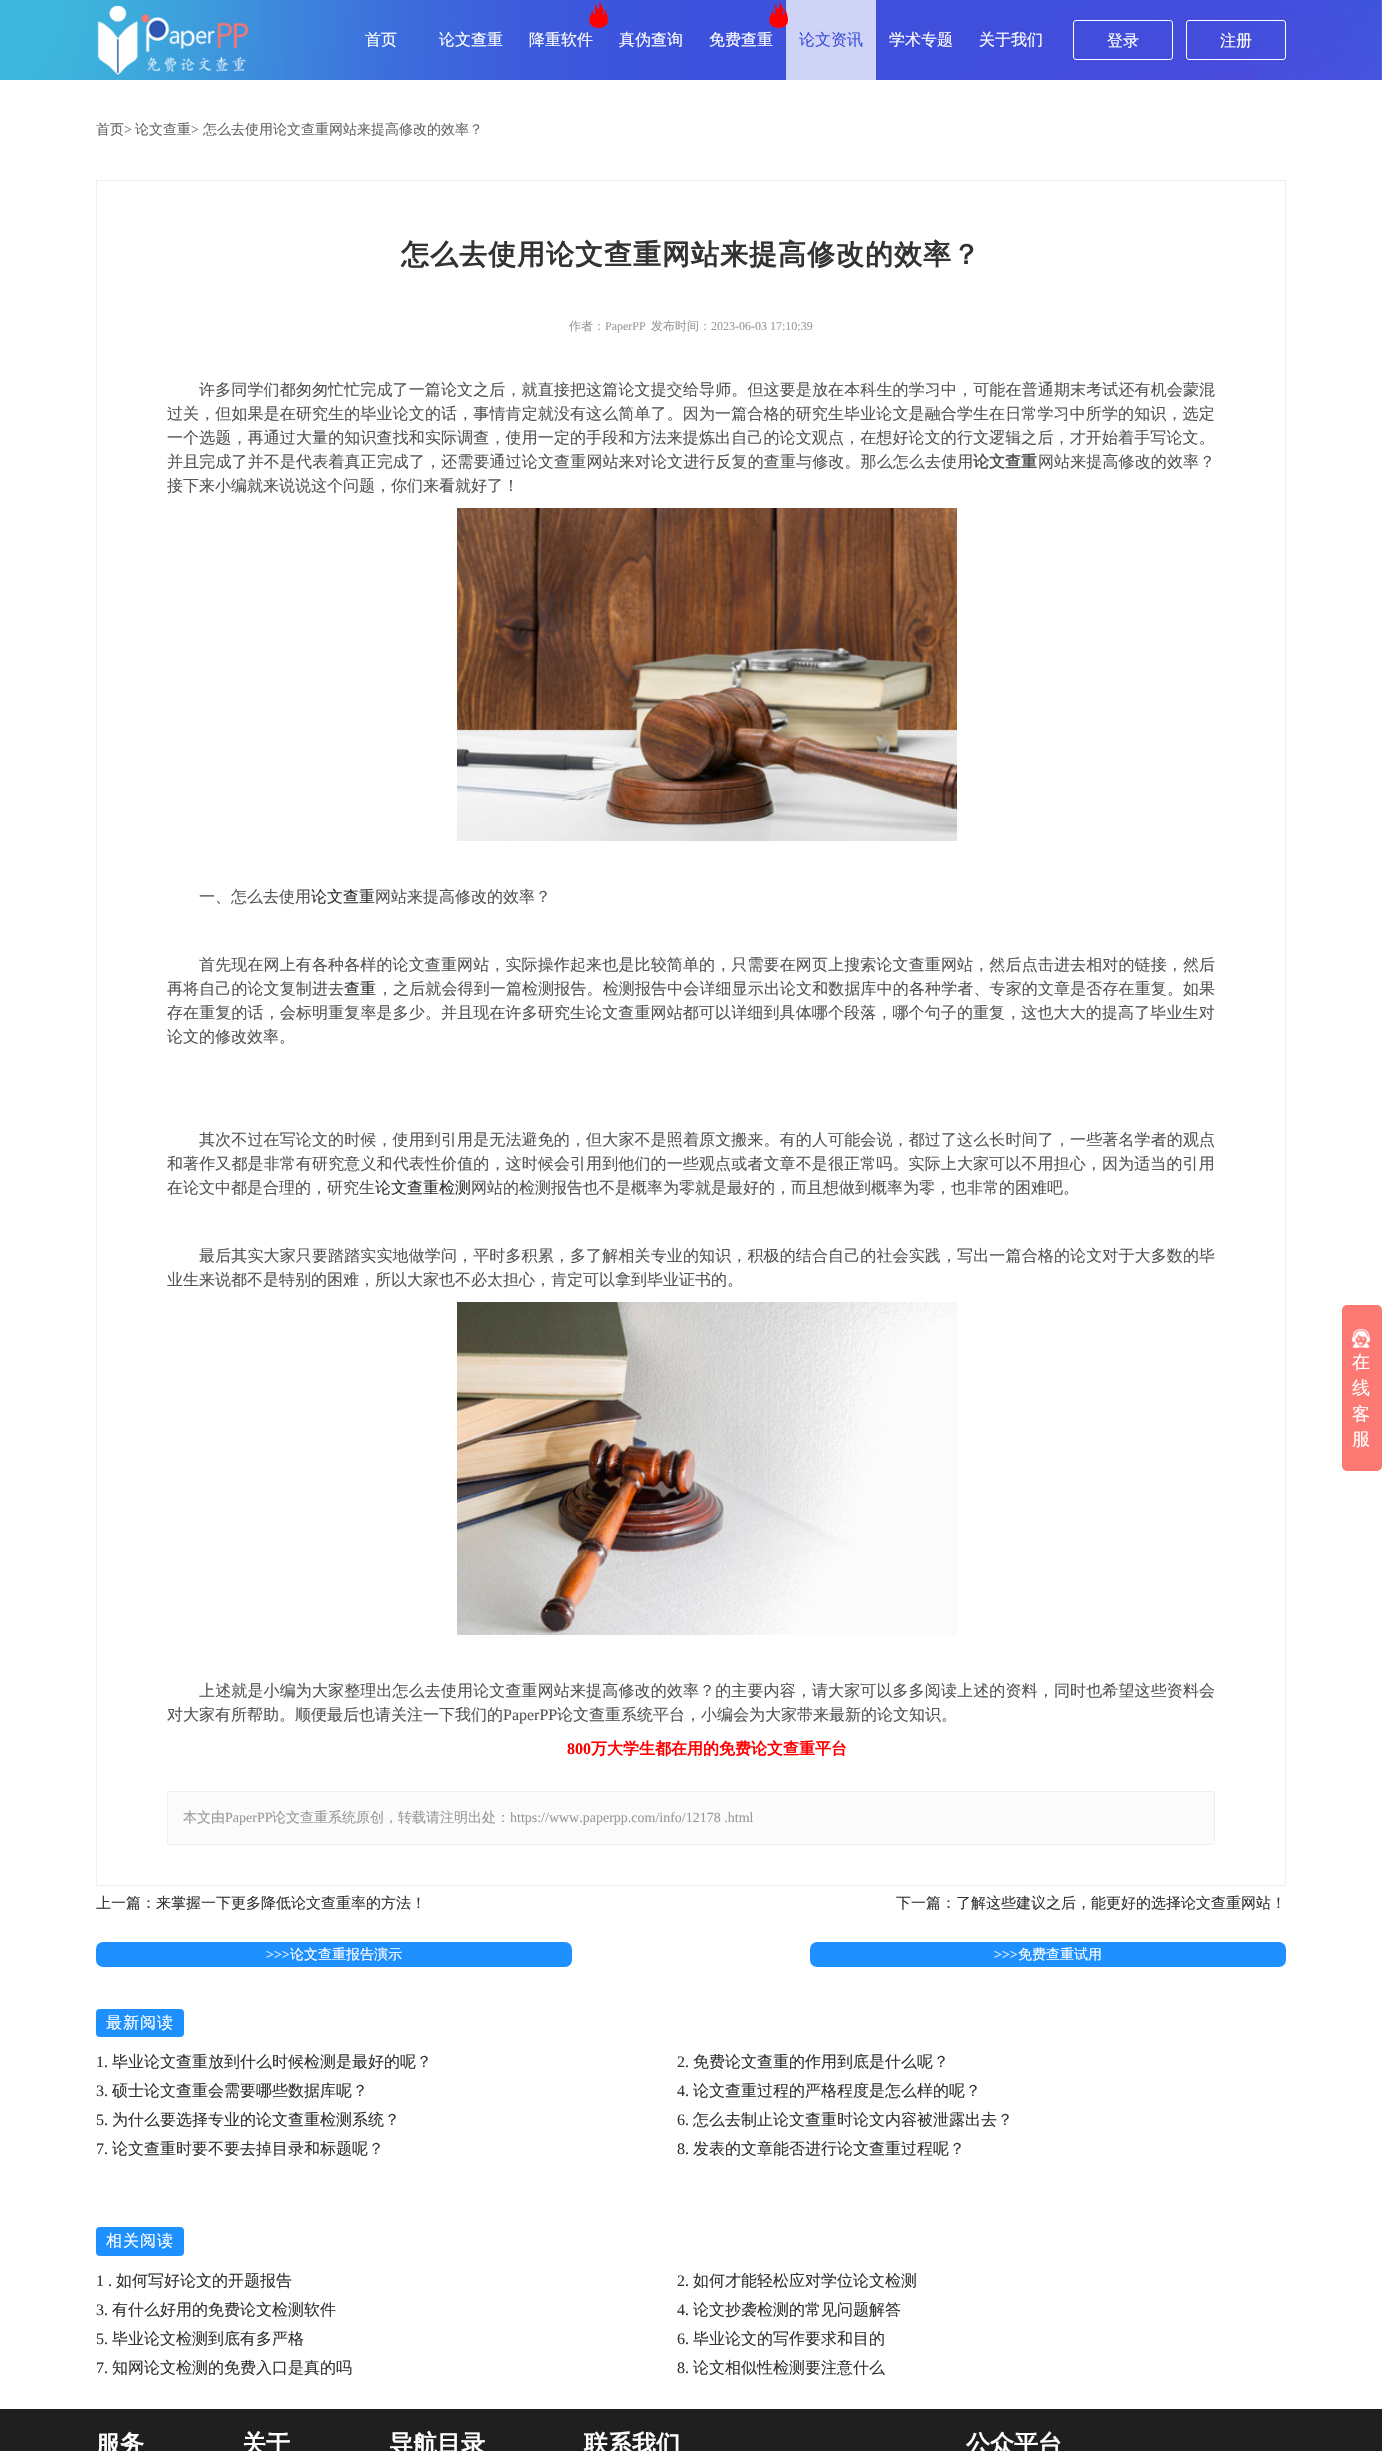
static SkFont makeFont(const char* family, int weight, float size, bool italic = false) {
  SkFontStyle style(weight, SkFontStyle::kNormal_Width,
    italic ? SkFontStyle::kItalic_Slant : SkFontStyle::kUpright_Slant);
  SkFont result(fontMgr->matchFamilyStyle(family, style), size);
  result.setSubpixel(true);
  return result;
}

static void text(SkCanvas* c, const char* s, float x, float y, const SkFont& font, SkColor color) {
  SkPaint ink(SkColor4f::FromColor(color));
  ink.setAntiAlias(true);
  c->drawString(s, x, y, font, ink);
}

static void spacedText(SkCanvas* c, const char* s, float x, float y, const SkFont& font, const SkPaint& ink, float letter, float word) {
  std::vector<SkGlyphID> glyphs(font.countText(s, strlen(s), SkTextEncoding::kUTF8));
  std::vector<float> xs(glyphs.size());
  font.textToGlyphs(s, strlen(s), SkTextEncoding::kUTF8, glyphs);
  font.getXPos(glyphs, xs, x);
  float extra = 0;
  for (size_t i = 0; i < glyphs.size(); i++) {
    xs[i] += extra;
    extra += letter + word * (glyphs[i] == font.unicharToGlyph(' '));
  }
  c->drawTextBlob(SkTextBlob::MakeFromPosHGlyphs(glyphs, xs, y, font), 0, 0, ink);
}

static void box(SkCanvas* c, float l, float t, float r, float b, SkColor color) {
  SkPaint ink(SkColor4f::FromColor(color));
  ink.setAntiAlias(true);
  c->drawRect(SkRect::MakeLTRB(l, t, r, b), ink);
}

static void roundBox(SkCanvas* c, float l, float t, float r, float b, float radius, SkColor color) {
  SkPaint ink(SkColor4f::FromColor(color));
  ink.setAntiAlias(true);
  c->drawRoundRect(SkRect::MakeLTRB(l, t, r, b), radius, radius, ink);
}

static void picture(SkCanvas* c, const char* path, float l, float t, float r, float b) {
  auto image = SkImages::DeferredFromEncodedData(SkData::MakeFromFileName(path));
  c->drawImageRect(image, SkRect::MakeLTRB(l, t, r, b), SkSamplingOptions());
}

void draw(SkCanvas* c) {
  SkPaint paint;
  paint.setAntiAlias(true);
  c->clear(0xffffffff);
  picture(c, "img_01.png", 0, 0, 1382, 80);
  picture(c, "img_02.png", 97, 5, 249, 75);
  SkFont face1 = makeFont("WenQuanYi Zen Hei", 500, 16);
  text(c, "首页", 365, 45, face1, 0xffffffff);
  text(c, "论文查重", 439, 45, face1, 0xffffffff);
  picture(c, "img_03.png", 589, 2, 608, 28);
  text(c, "降重软件", 529, 45, face1, 0xffffffff);
  text(c, "真伪查询", 619, 45, face1, 0xffffffff);
  box(c, 786, 0, 876, 80, 0xffcfd3f6);
  picture(c, "img_04.png", 769, 2, 788, 28);
  text(c, "免费查重", 709, 45, face1, 0xffffffff);
  text(c, "论文资讯", 799, 45, face1, 0xff3d50dc);
  text(c, "学术专题", 889, 45, face1, 0xffffffff);
  text(c, "关于我们", 979, 45, face1, 0xffffffff);
  paint.setStyle(SkPaint::kStroke_Style);
  paint.setStrokeWidth(1);
  paint.setColor(0xffffffff);
  c->drawRoundRect(SkRect::MakeLTRB(1073.5f, 20.5f, 1172.5f, 59.5f), 2.5f, 2.5f, paint);
  text(c, "登录", 1107, 46, face1, 0xffffffff);
  c->drawRoundRect(SkRect::MakeLTRB(1186.5f, 20.5f, 1285.5f, 59.5f), 2.5f, 2.5f, paint);
  text(c, "注册", 1220, 46, face1, 0xffffffff);
  SkFont face2 = makeFont("WenQuanYi Zen Hei", 500, 14);
  text(c, "首页", 96, 134, face2, 0xff666666);
  SkFont face3 = makeFont("Liberation Serif", 400, 14);
  text(c, ">", 124, 134, face3, 0xff666666);
  text(c, "论文查重", 135, 134, face2, 0xff666666);
  text(c, ">", 191, 134, face3, 0xff666666);
  text(c, "怎么去使用论文查重网站来提高修改的效率？", 203, 134, face2, 0xff666666);
  paint.setColor(0xffeeeeee);
  c->drawRect(SkRect::MakeLTRB(96.5f, 180.5f, 1285.5f, 1885.5f), paint);
  SkFont face4 = makeFont("WenQuanYi Zen Hei", 700, 28);
  paint.setStyle(SkPaint::kFill_Style);
  paint.setColor(0xff333333);
  spacedText(c, "怎么去使用论文查重网站来提高修改的效率？", 401, 264, face4, paint, 1, 0);
  SkFont face5 = makeFont("WenQuanYi Zen Hei", 500, 12);
  text(c, "作者：", 569, 330, face5, 0xff999999);
  SkFont face6 = makeFont("Liberation Serif", 400, 12);
  text(c, "PaperPP", 605, 330, face6, 0xff999999);
  text(c, "发布时间：", 651, 330, face5, 0xff999999);
  text(c, "2023-06-03 17:10:39", 711, 330, face6, 0xff999999);
  paint.setColor(0xff555555);
  spacedText(c, "许多同学们都匆匆忙忙完成了一篇论文之后，就直接把这篇论文提交给导师。但这要是放在本科生的学习中，可能在普通期末考试还有机会蒙混", 199, 395, face1, paint, 0.13f, 0);
  spacedText(c, "过关，但如果是在研究生的毕业论文的话，事情肯定就没有这么简单了。因为一篇合格的研究生毕业论文是融合学生在日常学习中所学的知识，选定", 167, 419, face1, paint, 0.12f, 0);
  spacedText(c, "一个选题，再通过大量的知识查找和实际调查，使用一定的手段和方法来提炼出自己的论文观点，在想好论文的行文逻辑之后，才开始着手写论文。", 167, 443, face1, paint, 0.12f, 0);
  spacedText(c, "并且完成了并不是代表着真正完成了，还需要通过论文查重网站来对论文进行反复的查重与修改。那么怎么去使用", 167, 467, face1, paint, 0.13f, 0);
  SkFont face7 = makeFont("WenQuanYi Zen Hei", 700, 16);
  text(c, "论文查重", 973, 467, face7, 0xff555555);
  spacedText(c, "网站来提高修改的效率？", 1038, 467, face1, paint, 0.12f, 0);
  text(c, "接下来小编就来说说这个问题，你们来看就好了！", 167, 491, face1, 0xff555555);
  picture(c, "img_05.png", 457, 508, 957, 841);
  text(c, "一、怎么去使用", 199, 902, face1, 0xff555555);
  text(c, "论文查重", 311, 902, face1, 0xff333333);
  text(c, "网站来提高修改的效率？", 375, 902, face1, 0xff555555);
  spacedText(c, "首先现在网上有各种各样的论文查重网站，实际操作起来也是比较简单的，只需要在网页上搜索论文查重网站，然后点击进去相对的链接，然后", 199, 970, face1, paint, 0.13f, 0);
  spacedText(c, "再将自己的论文复制进去", 167, 994, face1, paint, 0.1f, 0);
  text(c, "查重", 344, 994, face1, 0xff333333);
  spacedText(c, "，之后就会得到一篇检测报告。检测报告中会详细显示出论文和数据库中的各种学者、专家的文章是否存在重复。如果", 377, 994, face1, paint, 0.12f, 0);
  spacedText(c, "存在重复的话，会标明重复率是多少。并且现在许多研究生论文查重网站都可以详细到具体哪个段落，哪个句子的重复，这也大大的提高了毕业生对", 167, 1018, face1, paint, 0.12f, 0);
  text(c, "论文的修改效率。", 167, 1042, face1, 0xff555555);
  spacedText(c, "其次不过在写论文的时候，使用到引用是无法避免的，但大家不是照着原文搬来。有的人可能会说，都过了这么长时间了，一些著名学者的观点", 199, 1145, face1, paint, 0.13f, 0);
  spacedText(c, "和著作又都是非常有研究意义和代表性价值的，这时候会引用到他们的一些观点或者文章不是很正常吗。实际上大家可以不用担心，因为适当的引用", 167, 1169, face1, paint, 0.12f, 0);
  text(c, "在论文中都是合理的，研究生", 167, 1193, face1, 0xff555555);
  text(c, "论文查重检测", 375, 1193, face1, 0xff333333);
  text(c, "网站的检测报告也不是概率为零就是最好的，而且想做到概率为零，也非常的困难吧。", 471, 1193, face1, 0xff555555);
  spacedText(c, "最后其实大家只要踏踏实实地做学问，平时多积累，多了解相关专业的知识，积极的结合自己的社会实践，写出一篇合格的论文对于大多数的毕", 199, 1261, face1, paint, 0.13f, 0);
  text(c, "业生来说都不是特别的困难，所以大家也不必太担心，肯定可以拿到毕业证书的。", 167, 1285, face1, 0xff555555);
  picture(c, "img_06.png", 457, 1302, 957, 1635);
  spacedText(c, "上述就是小编为大家整理出怎么去使用论文查重网站来提高修改的效率？的主要内容，请大家可以多多阅读上述的资料，同时也希望这些资料会", 199, 1696, face1, paint, 0.13f, 0);
  text(c, "对大家有所帮助。顺便最后也请关注一下我们的", 167, 1720, face1, 0xff555555);
  SkFont face8 = makeFont("Liberation Serif", 400, 16);
  text(c, "PaperPP", 503, 1720, face8, 0xff555555);
  text(c, "论文查重系统平台，小编会为大家带来最新的论文知识。", 557, 1720, face1, 0xff555555);
  SkFont face9 = makeFont("Liberation Serif", 700, 16);
  text(c, "800", 567, 1754, face9, 0xffff0000);
  text(c, "万大学生都在用的免费论文查重平台", 591, 1754, face7, 0xffff0000);
  paint.setColor(0xfffbfbfb);
  c->drawRoundRect(SkRect::MakeLTRB(167.5f, 1791.5f, 1214.5f, 1844.5f), 1.5f, 1.5f, paint);
  paint.setStyle(SkPaint::kStroke_Style);
  paint.setColor(0xffefefef);
  c->drawRoundRect(SkRect::MakeLTRB(167.5f, 1791.5f, 1214.5f, 1844.5f), 1.5f, 1.5f, paint);
  text(c, "本文由", 183, 1822, face2, 0xff999999);
  text(c, "PaperPP", 225, 1822, face3, 0xff999999);
  text(c, "论文查重系统原创，转载请注明出处：", 272, 1822, face2, 0xff999999);
  text(c, "https://www.paperpp.com/info/12178 .html", 510, 1822, face3, 0xff999999);
  SkFont face10 = makeFont("WenQuanYi Zen Hei", 500, 15);
  text(c, "上一篇：来掌握一下更多降低论文查重率的方法！", 96, 1908, face10, 0xff333333);
  text(c, "下一篇：了解这些建议之后，能更好的选择论文查重网站！", 896, 1908, face10, 0xff333333);
  roundBox(c, 96, 1942, 572, 1967, 7, 0xff1e90ff);
  text(c, ">>>", 266, 1959, face3, 0xffffffff);
  text(c, "论文查重报告演示", 290, 1959, face2, 0xffffffff);
  roundBox(c, 810, 1942, 1286, 1967, 7, 0xff1e90ff);
  text(c, ">>>", 994, 1959, face3, 0xffffffff);
  text(c, "免费查重试用", 1018, 1959, face2, 0xffffffff);
  roundBox(c, 96, 2009, 184, 2037, 4, 0xff1e90ff);
  paint.setStyle(SkPaint::kFill_Style);
  paint.setColor(0xffffffff);
  spacedText(c, "最新阅读", 106, 2028, face1, paint, 1, 0);
  text(c, "1.", 96, 2067, face8, 0xff333333);
  text(c, "毕业论文查重放到什么时候检测是最好的呢？", 112, 2067, face1, 0xff333333);
  text(c, "2.", 677, 2067, face8, 0xff333333);
  text(c, "免费论文查重的作用到底是什么呢？", 693, 2067, face1, 0xff333333);
  text(c, "3.", 96, 2096, face8, 0xff333333);
  text(c, "硕士论文查重会需要哪些数据库呢？", 112, 2096, face1, 0xff333333);
  text(c, "4.", 677, 2096, face8, 0xff333333);
  text(c, "论文查重过程的严格程度是怎么样的呢？", 693, 2096, face1, 0xff333333);
  text(c, "5.", 96, 2125, face8, 0xff333333);
  text(c, "为什么要选择专业的论文查重检测系统？", 112, 2125, face1, 0xff333333);
  text(c, "6.", 677, 2125, face8, 0xff333333);
  text(c, "怎么去制止论文查重时论文内容被泄露出去？", 693, 2125, face1, 0xff333333);
  text(c, "7.", 96, 2154, face8, 0xff333333);
  text(c, "论文查重时要不要去掉目录和标题呢？", 112, 2154, face1, 0xff333333);
  text(c, "8.", 677, 2154, face8, 0xff333333);
  text(c, "发表的文章能否进行论文查重过程呢？", 693, 2154, face1, 0xff333333);
  roundBox(c, 96, 2227, 184, 2256, 4, 0xff1e90ff);
  spacedText(c, "相关阅读", 106, 2246, face1, paint, 1, 0);
  text(c, "1 .", 96, 2286, face8, 0xff333333);
  text(c, "如何写好论文的开题报告", 116, 2286, face1, 0xff333333);
  text(c, "2.", 677, 2286, face8, 0xff333333);
  text(c, "如何才能轻松应对学位论文检测", 693, 2286, face1, 0xff333333);
  text(c, "3.", 96, 2315, face8, 0xff333333);
  text(c, "有什么好用的免费论文检测软件", 112, 2315, face1, 0xff333333);
  text(c, "4.", 677, 2315, face8, 0xff333333);
  text(c, "论文抄袭检测的常见问题解答", 693, 2315, face1, 0xff333333);
  text(c, "5.", 96, 2344, face8, 0xff333333);
  text(c, "毕业论文检测到底有多严格", 112, 2344, face1, 0xff333333);
  text(c, "6.", 677, 2344, face8, 0xff333333);
  text(c, "毕业论文的写作要求和目的", 693, 2344, face1, 0xff333333);
  text(c, "7.", 96, 2373, face8, 0xff333333);
  text(c, "知网论文检测的免费入口是真的吗", 112, 2373, face1, 0xff333333);
  text(c, "8.", 677, 2373, face8, 0xff333333);
  text(c, "论文相似性检测要注意什么", 693, 2373, face1, 0xff333333);
  roundBox(c, 1342, 1305, 1382, 1471, 5, 0xfffc7a73);
  picture(c, "img_07.png", 1352, 1329, 1370, 1348);
  SkFont face11 = makeFont("WenQuanYi Zen Hei", 500, 18);
  text(c, "在", 1352, 1368, face11, 0xffffffff);
  text(c, "线", 1352, 1394, face11, 0xffffffff);
  text(c, "客", 1352, 1420, face11, 0xffffffff);
  text(c, "服", 1352, 1445, face11, 0xffffffff);
  box(c, 0, 2409, 1382, 2451, 0xff1f1f1f);
  SkFont face12 = makeFont("WenQuanYi Zen Hei", 700, 24);
  text(c, "服务", 96, 2452, face12, 0xffffffff);
  text(c, "关于", 242, 2452, face12, 0xffffffff);
  text(c, "导航目录", 389, 2452, face12, 0xffffffff);
  text(c, "联系我们", 584, 2452, face12, 0xffffffff);
  text(c, "公众平台", 966, 2452, face12, 0xffffffff);
}
